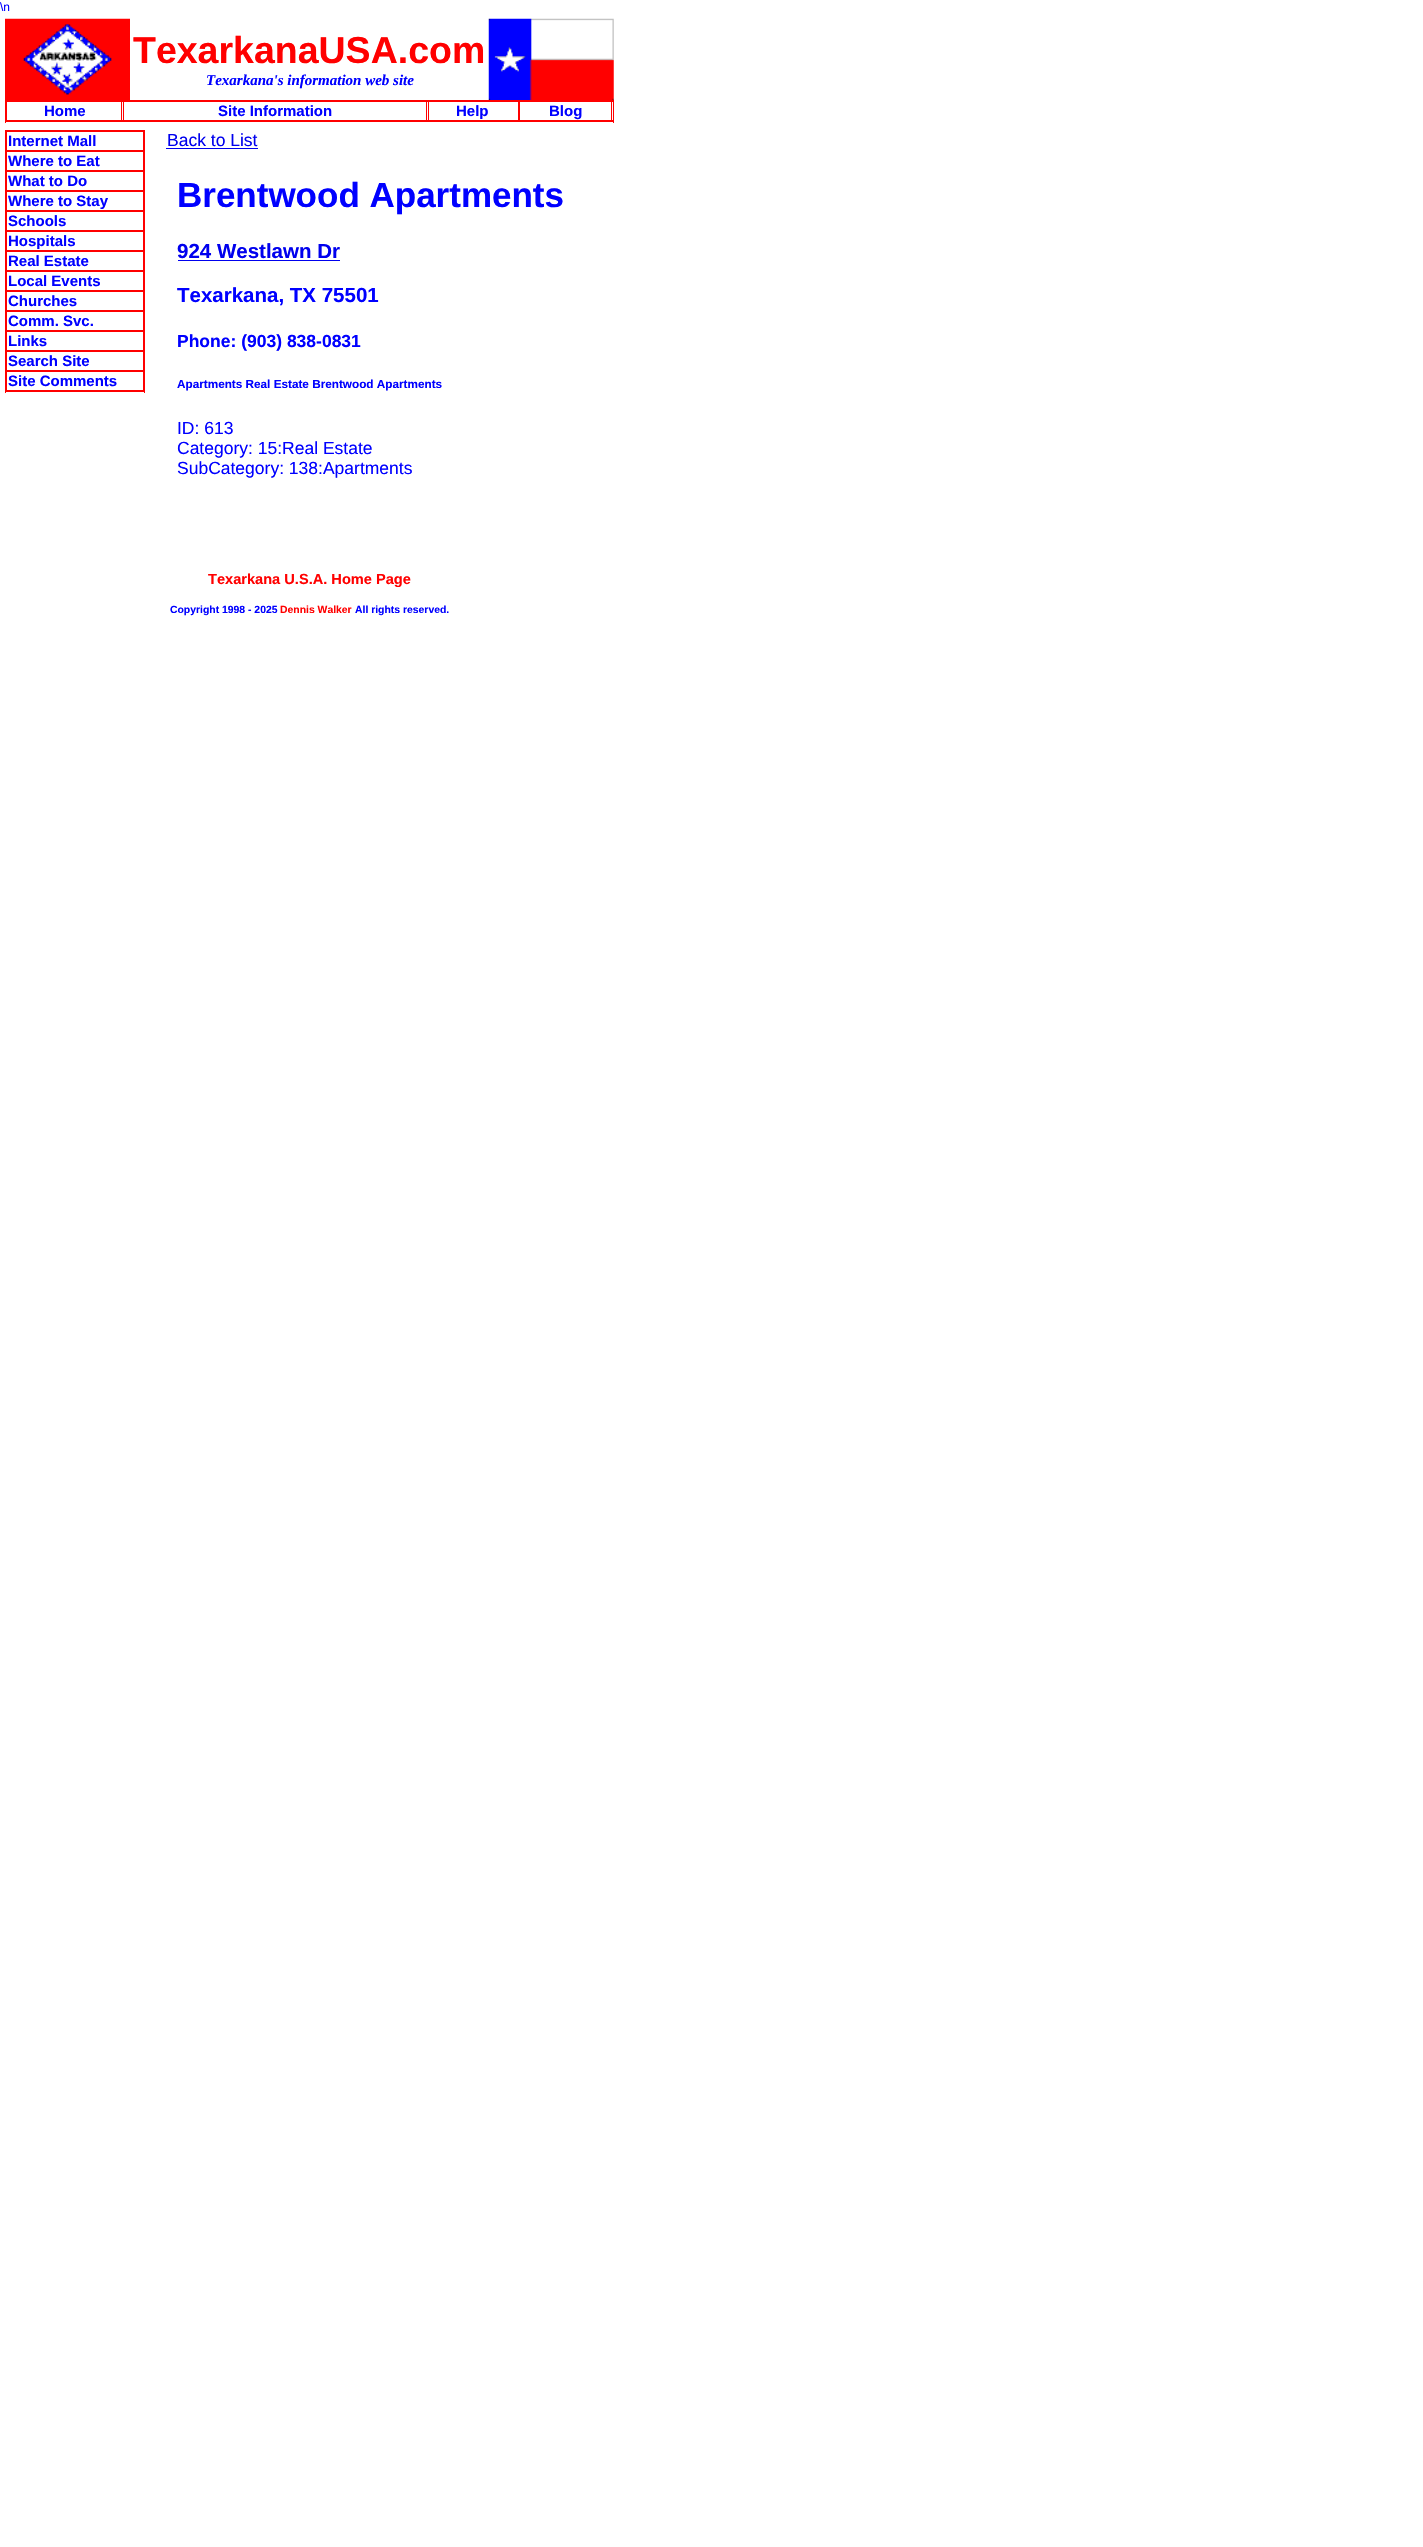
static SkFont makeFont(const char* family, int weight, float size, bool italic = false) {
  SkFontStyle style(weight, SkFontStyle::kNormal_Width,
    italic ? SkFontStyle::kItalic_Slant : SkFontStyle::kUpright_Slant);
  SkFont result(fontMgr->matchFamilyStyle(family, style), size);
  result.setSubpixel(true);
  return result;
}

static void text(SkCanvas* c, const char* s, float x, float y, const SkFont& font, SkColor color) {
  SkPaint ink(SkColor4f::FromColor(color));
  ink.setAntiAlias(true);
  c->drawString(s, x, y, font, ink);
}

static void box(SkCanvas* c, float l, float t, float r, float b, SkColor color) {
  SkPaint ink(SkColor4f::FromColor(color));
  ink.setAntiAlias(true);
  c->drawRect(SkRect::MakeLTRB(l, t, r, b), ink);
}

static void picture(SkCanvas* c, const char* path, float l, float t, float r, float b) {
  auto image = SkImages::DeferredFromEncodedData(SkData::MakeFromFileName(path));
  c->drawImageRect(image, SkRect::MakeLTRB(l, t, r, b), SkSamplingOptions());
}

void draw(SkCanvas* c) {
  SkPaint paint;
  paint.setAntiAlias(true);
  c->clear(0xffffffff);
  SkFont face1 = makeFont("Liberation Sans", 400, 12);
  text(c, "\\n", 0, 11, face1, 0xff0000ff);
  picture(c, "img_01.png", 5, 18, 130, 100);
  SkFont face2 = makeFont("Liberation Sans", 700, 37.5f);
  text(c, "TexarkanaUSA.com", 133, 63, face2, 0xffff0000);
  SkFont face3 = makeFont("Liberation Serif", 700, 15, true);
  text(c, "Texarkana's information web site", 206, 85, face3, 0xff0000ff);
  picture(c, "img_02.png", 488, 18, 614, 100);
  box(c, 5, 100, 614, 101, 0xffff0000);
  box(c, 613, 100, 614, 123, 0xffff0000);
  box(c, 5, 121, 614, 122, 0xffff0000);
  box(c, 5, 100, 6, 123, 0xffff0000);
  box(c, 6, 101, 613, 102, 0xffff0000);
  box(c, 121, 101, 122, 121, 0xffff0000);
  box(c, 6, 120, 123, 121, 0xffff0000);
  box(c, 6, 101, 7, 121, 0xffff0000);
  SkFont face4 = makeFont("Liberation Sans", 700, 15);
  text(c, "Home", 44, 116, face4, 0xff0000ff);
  box(c, 426, 101, 427, 121, 0xffff0000);
  box(c, 123, 120, 428, 121, 0xffff0000);
  box(c, 123, 101, 124, 121, 0xffff0000);
  text(c, "Site Information", 218, 116, face4, 0xff0000ff);
  box(c, 518, 101, 519, 121, 0xffff0000);
  box(c, 428, 120, 519, 121, 0xffff0000);
  box(c, 428, 101, 429, 121, 0xffff0000);
  text(c, "Help", 456, 116, face4, 0xff0000ff);
  box(c, 611, 101, 612, 121, 0xffff0000);
  box(c, 519, 120, 613, 121, 0xffff0000);
  box(c, 519, 101, 520, 121, 0xffff0000);
  text(c, "Blog", 549, 116, face4, 0xff0000ff);
  box(c, 5, 130, 145, 131, 0xffff0000);
  box(c, 144, 130, 145, 393, 0xffff0000);
  box(c, 5, 391, 145, 392, 0xffff0000);
  box(c, 5, 130, 6, 393, 0xffff0000);
  box(c, 6, 131, 144, 132, 0xffff0000);
  box(c, 143, 131, 144, 151, 0xffff0000);
  box(c, 6, 150, 144, 152, 0xffff0000);
  box(c, 6, 131, 7, 151, 0xffff0000);
  text(c, "Internet Mall", 8, 146, face4, 0xff0000ff);
  box(c, 143, 151, 144, 171, 0xffff0000);
  box(c, 6, 170, 144, 172, 0xffff0000);
  box(c, 6, 151, 7, 171, 0xffff0000);
  text(c, "Where to Eat", 8, 166, face4, 0xff0000ff);
  box(c, 143, 171, 144, 191, 0xffff0000);
  box(c, 6, 190, 144, 192, 0xffff0000);
  box(c, 6, 171, 7, 191, 0xffff0000);
  text(c, "What to Do", 8, 186, face4, 0xff0000ff);
  box(c, 143, 191, 144, 211, 0xffff0000);
  box(c, 6, 210, 144, 212, 0xffff0000);
  box(c, 6, 191, 7, 211, 0xffff0000);
  text(c, "Where to Stay", 8, 206, face4, 0xff0000ff);
  box(c, 143, 211, 144, 231, 0xffff0000);
  box(c, 6, 230, 144, 232, 0xffff0000);
  box(c, 6, 211, 7, 231, 0xffff0000);
  text(c, "Schools", 8, 226, face4, 0xff0000ff);
  box(c, 143, 231, 144, 251, 0xffff0000);
  box(c, 6, 250, 144, 252, 0xffff0000);
  box(c, 6, 231, 7, 251, 0xffff0000);
  text(c, "Hospitals", 8, 246, face4, 0xff0000ff);
  box(c, 143, 251, 144, 271, 0xffff0000);
  box(c, 6, 270, 144, 272, 0xffff0000);
  box(c, 6, 251, 7, 271, 0xffff0000);
  text(c, "Real Estate", 8, 266, face4, 0xff0000ff);
  box(c, 143, 271, 144, 291, 0xffff0000);
  box(c, 6, 290, 144, 292, 0xffff0000);
  box(c, 6, 271, 7, 291, 0xffff0000);
  text(c, "Local Events", 8, 286, face4, 0xff0000ff);
  box(c, 143, 291, 144, 311, 0xffff0000);
  box(c, 6, 310, 144, 312, 0xffff0000);
  box(c, 6, 291, 7, 311, 0xffff0000);
  text(c, "Churches", 8, 306, face4, 0xff0000ff);
  box(c, 143, 311, 144, 331, 0xffff0000);
  box(c, 6, 330, 144, 332, 0xffff0000);
  box(c, 6, 311, 7, 331, 0xffff0000);
  text(c, "Comm. Svc.", 8, 326, face4, 0xff0000ff);
  box(c, 143, 331, 144, 351, 0xffff0000);
  box(c, 6, 350, 144, 352, 0xffff0000);
  box(c, 6, 331, 7, 351, 0xffff0000);
  text(c, "Links", 8, 346, face4, 0xff0000ff);
  box(c, 143, 351, 144, 371, 0xffff0000);
  box(c, 6, 370, 144, 372, 0xffff0000);
  box(c, 6, 351, 7, 371, 0xffff0000);
  text(c, "Search Site", 8, 366, face4, 0xff0000ff);
  box(c, 143, 371, 144, 391, 0xffff0000);
  box(c, 6, 390, 144, 391, 0xffff0000);
  box(c, 6, 371, 7, 391, 0xffff0000);
  text(c, "Site Comments", 8, 386, face4, 0xff0000ff);
  SkFont face5 = makeFont("Liberation Sans", 400, 17.5f);
  text(c, "Back to List", 167, 146, face5, 0xff0000ee);
  box(c, 166, 148, 258, 149, 0xff0000ee);
  SkFont face6 = makeFont("Liberation Sans", 700, 35);
  text(c, "Brentwood Apartments", 177, 207, face6, 0xff0000ff);
  SkFont face7 = makeFont("Liberation Sans", 700, 20.5f);
  text(c, "924 Westlawn Dr", 177, 258, face7, 0xff0000ee);
  box(c, 178, 260, 340, 261, 0xff0000ee);
  text(c, "Texarkana, TX 75501", 177, 302, face7, 0xff0000ff);
  SkFont face8 = makeFont("Liberation Sans", 700, 17.5f);
  text(c, "Phone: (903) 838-0831", 177, 347, face8, 0xff0000ff);
  SkFont face9 = makeFont("Liberation Sans", 700, 11.75f);
  text(c, "Apartments Real Estate Brentwood Apartments", 177, 388, face9, 0xff0000ff);
  text(c, "ID: 613", 177, 434, face5, 0xff0000ff);
  text(c, "Category: 15:Real Estate", 177, 454, face5, 0xff0000ff);
  text(c, "SubCategory: 138:Apartments", 177, 474, face5, 0xff0000ff);
  SkFont face10 = makeFont("Liberation Sans", 700, 14.6f);
  text(c, "Texarkana U.S.A. Home Page", 208, 584, face10, 0xffff0000);
  SkFont face11 = makeFont("Liberation Sans", 700, 10.4f);
  text(c, "Copyright 1998 - 2025", 170, 613, face11, 0xff0000ff);
  text(c, "Dennis Walker", 280, 613, face11, 0xffff0000);
  text(c, "All rights reserved.", 355, 613, face11, 0xff0000ff);
}
